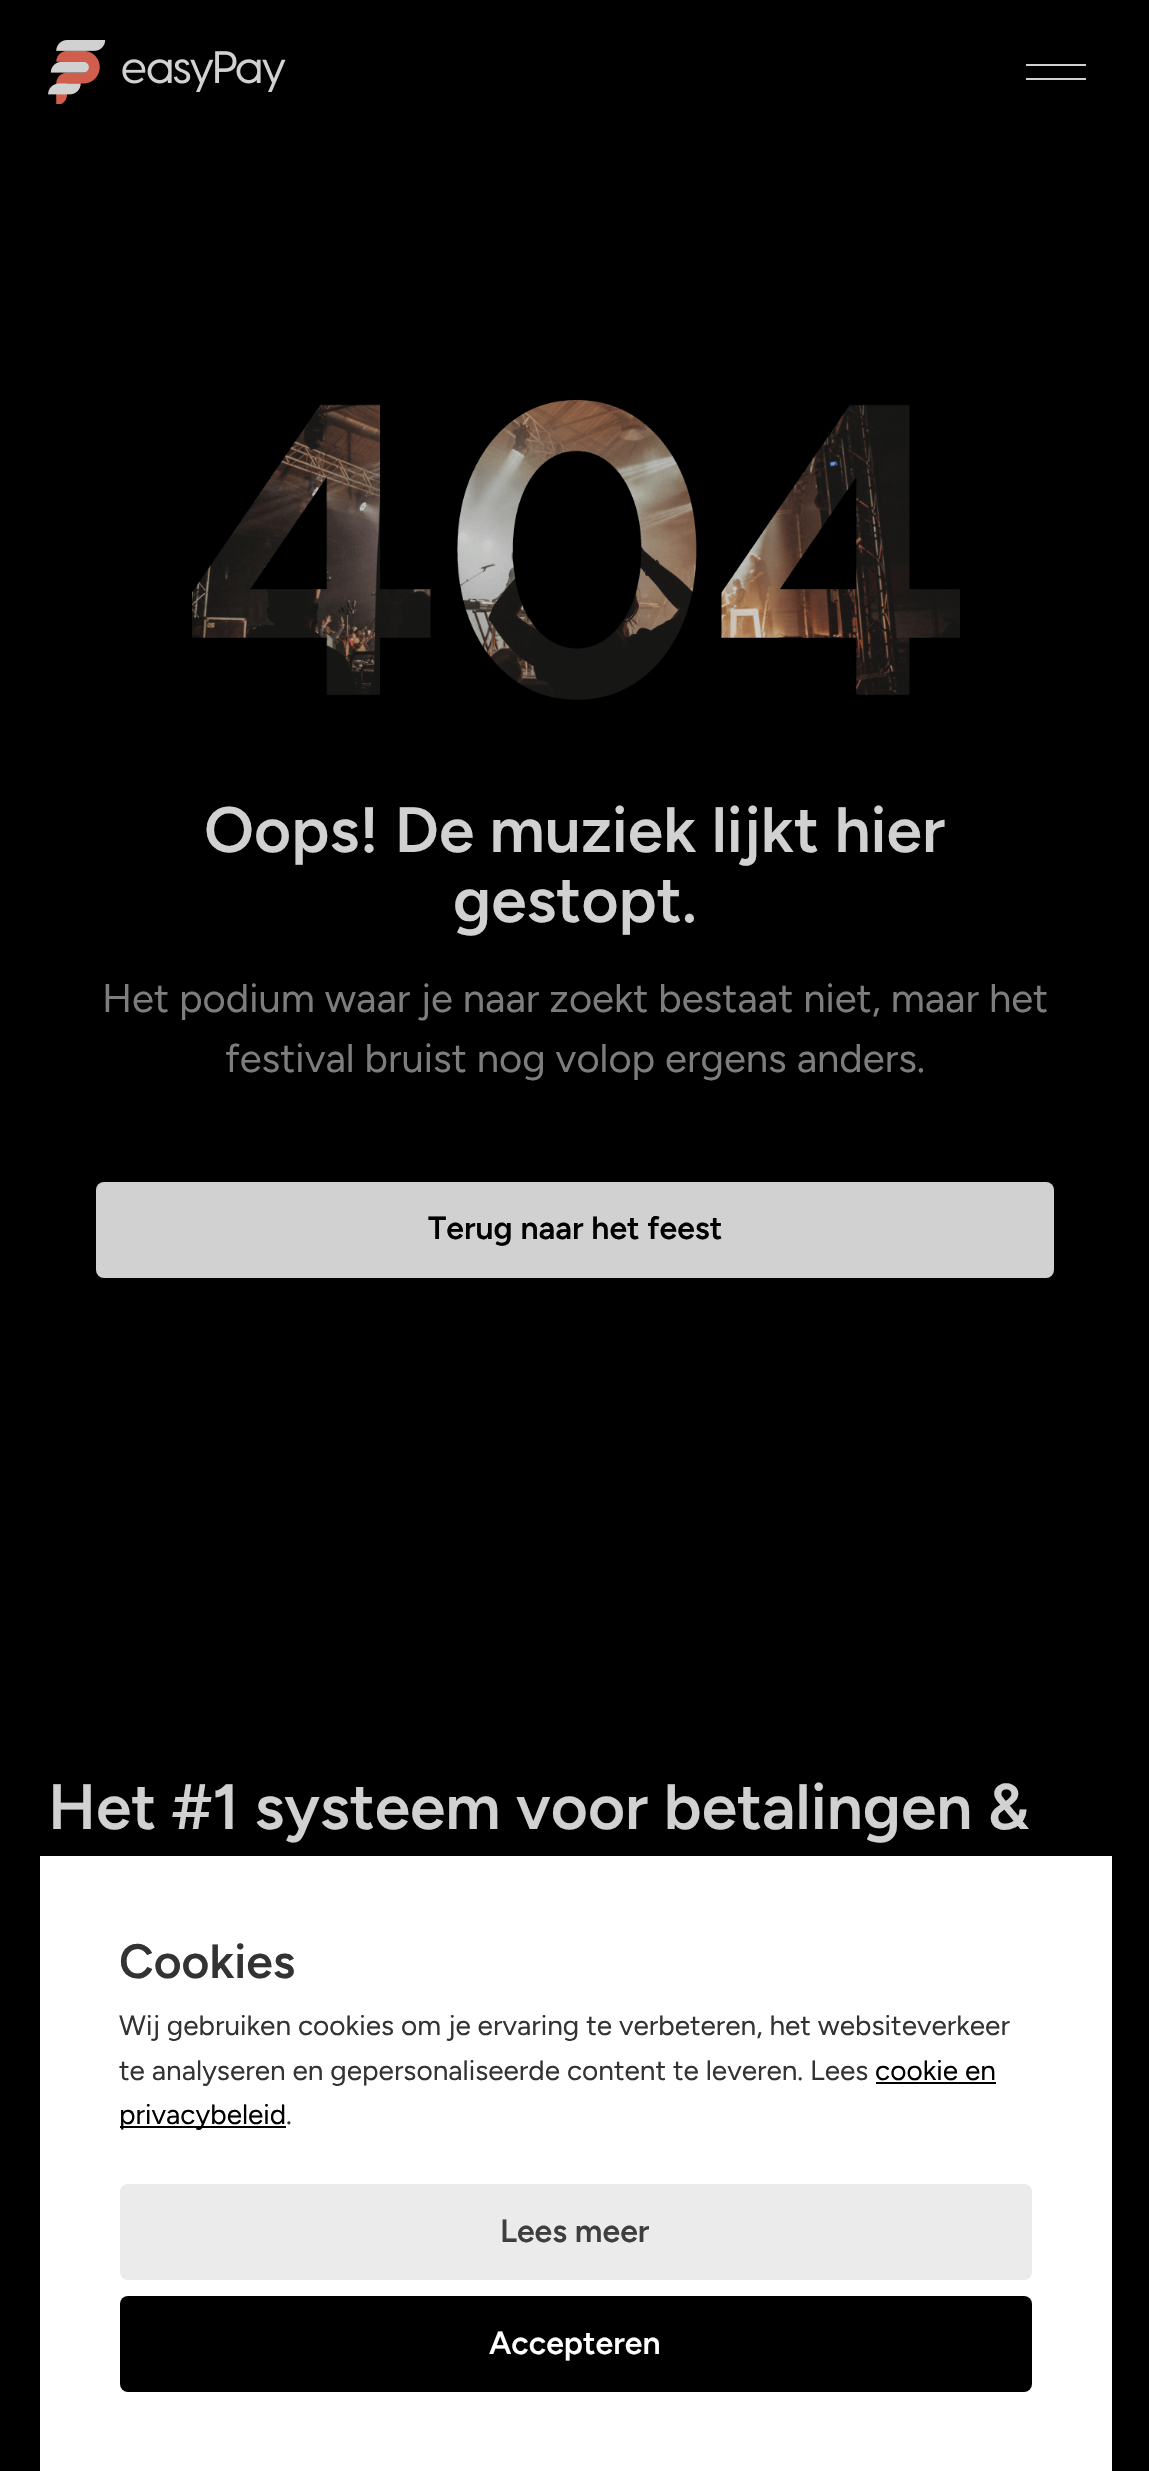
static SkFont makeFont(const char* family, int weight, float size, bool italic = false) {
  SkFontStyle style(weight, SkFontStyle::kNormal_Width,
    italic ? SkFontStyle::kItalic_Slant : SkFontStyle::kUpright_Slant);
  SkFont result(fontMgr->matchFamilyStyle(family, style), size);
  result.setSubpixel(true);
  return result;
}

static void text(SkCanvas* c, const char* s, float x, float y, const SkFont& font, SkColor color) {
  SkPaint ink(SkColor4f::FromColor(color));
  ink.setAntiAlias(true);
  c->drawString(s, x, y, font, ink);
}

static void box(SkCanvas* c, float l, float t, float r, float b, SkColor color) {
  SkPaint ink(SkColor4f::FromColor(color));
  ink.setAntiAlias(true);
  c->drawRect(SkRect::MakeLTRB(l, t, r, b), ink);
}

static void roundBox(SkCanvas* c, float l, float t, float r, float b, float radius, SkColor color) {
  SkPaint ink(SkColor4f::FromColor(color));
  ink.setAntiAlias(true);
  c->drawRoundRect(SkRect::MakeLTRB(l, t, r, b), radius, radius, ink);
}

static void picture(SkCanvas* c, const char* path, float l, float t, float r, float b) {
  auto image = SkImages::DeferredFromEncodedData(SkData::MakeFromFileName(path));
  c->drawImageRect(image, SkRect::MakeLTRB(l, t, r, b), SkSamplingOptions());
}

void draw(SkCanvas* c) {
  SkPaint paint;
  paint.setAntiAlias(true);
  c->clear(0xff000000);
  picture(c, "img_01.png", 48, 40, 286, 104);
  box(c, 1026, 64, 1086, 66, 0xffd1d1d1);
  box(c, 1026, 78, 1086, 80, 0xffd1d1d1);
  picture(c, "img_02.png", 192, 400, 960, 700);
  SkFont face1 = makeFont("Figtree", 600, 64);
  text(c, "Oops! De muziek lijkt hier", 204, 852, face1, 0xffd1d1d1);
  text(c, "gestopt.", 453, 922, face1, 0xffd1d1d1);
  SkFont face2 = makeFont("Figtree", 400, 40);
  text(c, "Het podium waar je naar zoekt bestaat niet, maar het", 102, 1012, face2, 0xff7d7d7d);
  text(c, "festival bruist nog volop ergens anders.", 225, 1072, face2, 0xff7d7d7d);
  roundBox(c, 96, 1182, 1054, 1278, 8, 0xffd1d1d1);
  SkFont face3 = makeFont("Figtree", 600, 32);
  text(c, "Terug naar het feest", 428, 1239, face3, 0xff000000);
  text(c, "Het #1 systeem voor betalingen &", 48, 1829, face1, 0xffd1d1d1);
  box(c, 40, 1856, 1112, 2471, 0xffffffff);
  SkFont face4 = makeFont("Figtree", 600, 48);
  text(c, "Cookies", 119, 1978, face4, 0xff333333);
  SkFont face5 = makeFont("Figtree", 400, 28);
  text(c, "Wij gebruiken cookies om je ervaring te verbeteren, het websiteverkeer", 119, 2035, face5, 0xff333333);
  text(c, "te analyseren en gepersonaliseerde content te leveren. Lees", 119, 2080, face5, 0xff333333);
  text(c, "cookie en", 875, 2080, face5, 0xff000000);
  box(c, 876, 2082, 996, 2084, 0xff000000);
  box(c, 120, 2126, 286, 2128, 0xff000000);
  text(c, "privacybeleid", 119, 2124, face5, 0xff000000);
  text(c, ".", 286, 2124, face5, 0xff333333);
  roundBox(c, 120, 2184, 1032, 2280, 8, 0xffebebeb);
  text(c, "Lees meer", 500, 2242, face3, 0xff3e3e3e);
  roundBox(c, 120, 2296, 1032, 2392, 8, 0xff000000);
  text(c, "Accepteren", 489, 2354, face3, 0xffffffff);
}
